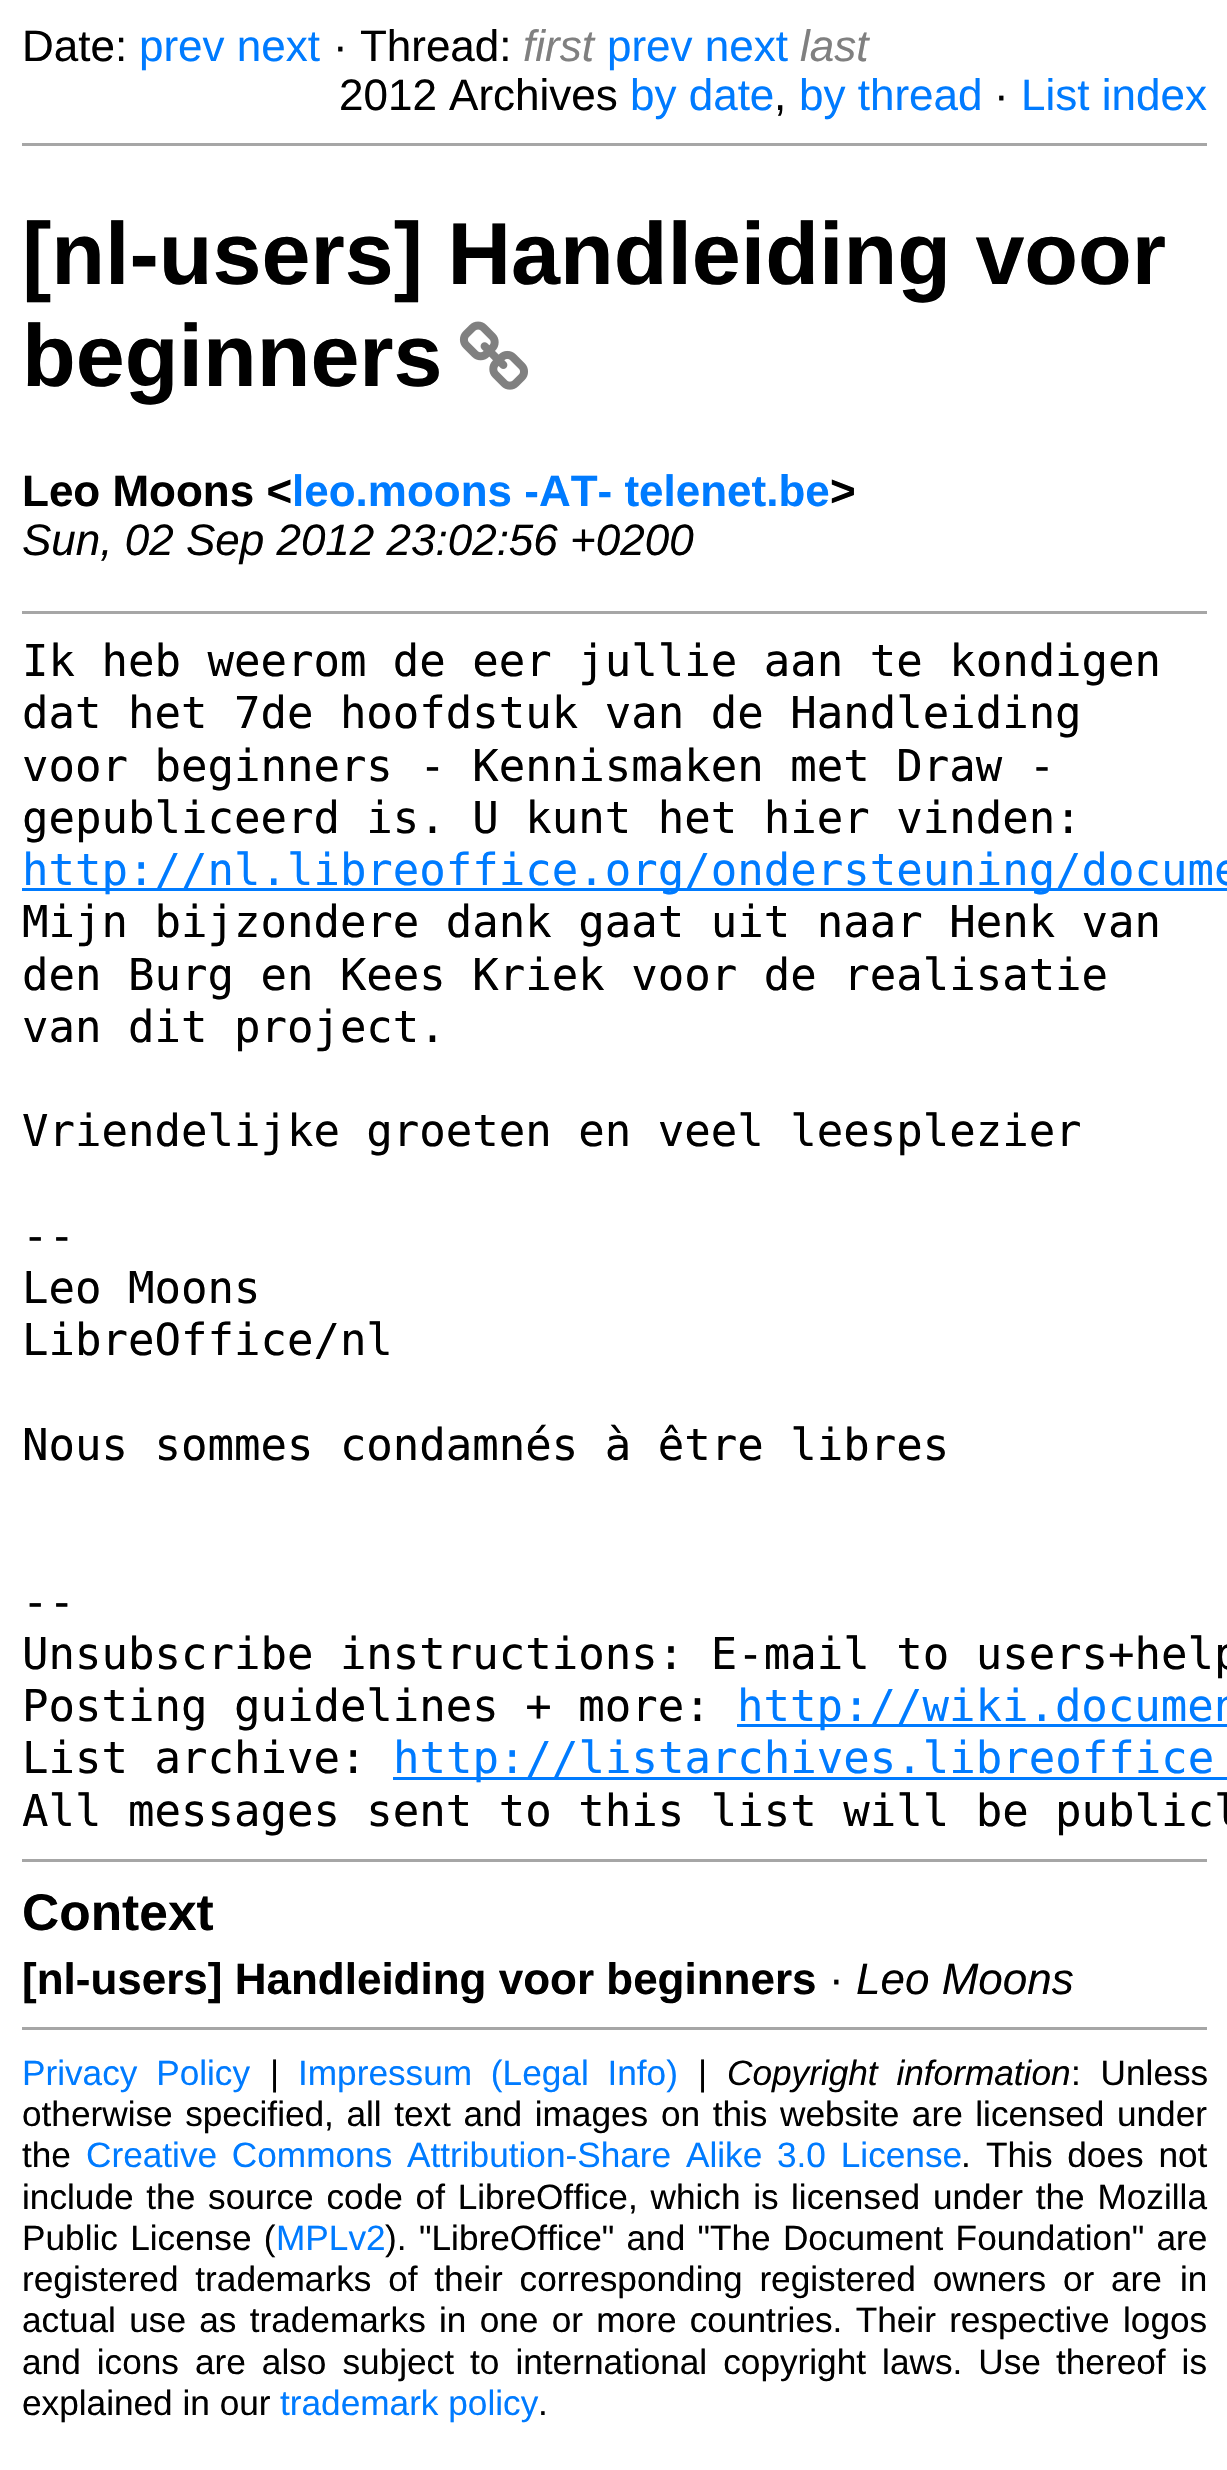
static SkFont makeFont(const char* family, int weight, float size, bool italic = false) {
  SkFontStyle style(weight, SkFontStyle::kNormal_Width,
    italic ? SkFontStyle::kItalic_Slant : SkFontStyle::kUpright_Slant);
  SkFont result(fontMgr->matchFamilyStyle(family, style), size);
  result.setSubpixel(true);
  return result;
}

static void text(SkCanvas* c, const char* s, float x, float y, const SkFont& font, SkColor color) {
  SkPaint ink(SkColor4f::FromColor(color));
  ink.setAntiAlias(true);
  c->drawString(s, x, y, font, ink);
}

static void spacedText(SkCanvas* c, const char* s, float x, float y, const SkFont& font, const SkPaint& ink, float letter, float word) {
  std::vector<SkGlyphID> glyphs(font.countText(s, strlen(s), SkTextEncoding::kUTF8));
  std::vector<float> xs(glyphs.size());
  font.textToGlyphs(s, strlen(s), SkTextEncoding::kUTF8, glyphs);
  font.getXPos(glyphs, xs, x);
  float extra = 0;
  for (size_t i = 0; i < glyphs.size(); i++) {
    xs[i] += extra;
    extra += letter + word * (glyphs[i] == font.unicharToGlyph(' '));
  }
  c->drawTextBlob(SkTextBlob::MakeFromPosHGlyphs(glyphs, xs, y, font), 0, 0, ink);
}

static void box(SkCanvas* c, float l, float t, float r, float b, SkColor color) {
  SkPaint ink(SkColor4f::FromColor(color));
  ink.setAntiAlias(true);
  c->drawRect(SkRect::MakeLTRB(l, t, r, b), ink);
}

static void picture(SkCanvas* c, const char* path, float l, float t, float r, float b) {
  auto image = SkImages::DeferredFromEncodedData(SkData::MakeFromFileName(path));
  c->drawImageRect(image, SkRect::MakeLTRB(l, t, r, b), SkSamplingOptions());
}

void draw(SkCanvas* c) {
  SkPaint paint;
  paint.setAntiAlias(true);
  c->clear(0xffffffff);
  SkFont face1 = makeFont("Liberation Sans", 400, 44);
  text(c, "Date:", 22, 61, face1, 0xff000000);
  text(c, "prev next", 139, 61, face1, 0xff007bff);
  text(c, "· Thread:", 333, 61, face1, 0xff000000);
  SkFont face2 = makeFont("Liberation Sans", 400, 44, true);
  text(c, "first", 523, 61, face2, 0xff808080);
  text(c, "prev next", 607, 61, face1, 0xff007bff);
  text(c, "last", 800, 61, face2, 0xff808080);
  text(c, "2012 Archives", 339, 110, face1, 0xff000000);
  text(c, "by date", 630, 110, face1, 0xff007bff);
  text(c, "by thread", 799, 110, face1, 0xff007bff);
  text(c, "·", 994, 110, face1, 0xff000000);
  text(c, "List index", 1021, 110, face1, 0xff007bff);
  text(c, ",", 774, 110, face1, 0xff000000);
  box(c, 22, 143, 1207, 146, 0xffa6a6a6);
  SkFont face3 = makeFont("Liberation Sans", 700, 88);
  text(c, "[nl-users] Handleiding voor", 22, 284, face3, 0xff000000);
  text(c, "beginners", 22, 386, face3, 0xff000000);
  picture(c, "img_01.png", 459, 321, 528, 390);
  SkFont face4 = makeFont("Liberation Sans", 700, 44);
  text(c, "Leo Moons <", 22, 506, face4, 0xff000000);
  text(c, "leo.moons -AT- telenet.be", 292, 506, face4, 0xff007bff);
  text(c, ">", 830, 506, face4, 0xff000000);
  text(c, "Sun, 02 Sep 2012 23:02:56 +0200", 22, 555, face2, 0xff000000);
  box(c, 22, 611, 1207, 614, 0xffa6a6a6);
  SkFont face5 = makeFont("DejaVu Sans Mono", 400, 44);
  text(c, "Ik heb weerom de eer jullie aan te kondigen", 22, 676, face5, 0xff000000);
  text(c, "dat het 7de hoofdstuk van de Handleiding", 22, 728, face5, 0xff000000);
  text(c, "voor beginners - Kennismaken met Draw -", 22, 781, face5, 0xff000000);
  text(c, "gepubliceerd is. U kunt het hier vinden:", 22, 833, face5, 0xff000000);
  box(c, 22, 888, 1227, 891, 0xff007bff);
  text(c, "http://nl.libreoffice.org/ondersteuning/docume", 22, 885, face5, 0xff007bff);
  text(c, "Mijn bijzondere dank gaat uit naar Henk van", 22, 937, face5, 0xff000000);
  text(c, "den Burg en Kees Kriek voor de realisatie", 22, 990, face5, 0xff000000);
  text(c, "van dit project.", 22, 1042, face5, 0xff000000);
  text(c, "Vriendelijke groeten en veel leesplezier", 22, 1146, face5, 0xff000000);
  text(c, "--", 22, 1251, face5, 0xff000000);
  text(c, "Leo Moons", 22, 1303, face5, 0xff000000);
  text(c, "LibreOffice/nl", 22, 1355, face5, 0xff000000);
  text(c, "Nous sommes condamnés à être libres", 22, 1460, face5, 0xff000000);
  text(c, "--", 22, 1617, face5, 0xff000000);
  text(c, "Unsubscribe instructions: E-mail to users+help", 22, 1669, face5, 0xff000000);
  text(c, "Posting guidelines + more:", 22, 1721, face5, 0xff000000);
  box(c, 737, 1724, 1227, 1727, 0xff007bff);
  text(c, "http://wiki.documen", 737, 1721, face5, 0xff007bff);
  text(c, "List archive:", 22, 1773, face5, 0xff000000);
  box(c, 393, 1777, 1227, 1780, 0xff007bff);
  text(c, "http://listarchives.libreoffice", 393, 1773, face5, 0xff007bff);
  text(c, "All messages sent to this list will be publicl", 22, 1826, face5, 0xff000000);
  box(c, 22, 1859, 1207, 1862, 0xffa6a6a6);
  SkFont face6 = makeFont("Liberation Sans", 700, 51.5f);
  text(c, "Context", 22, 1930, face6, 0xff000000);
  text(c, "[nl-users] Handleiding voor beginners", 22, 1994, face4, 0xff000000);
  text(c, "·", 829, 1994, face1, 0xff000000);
  text(c, "Leo Moons", 856, 1994, face2, 0xff000000);
  box(c, 22, 2027, 1207, 2030, 0xffa6a6a6);
  SkFont face7 = makeFont("Liberation Sans", 400, 35.2f);
  paint.setColor(0xff007bff);
  spacedText(c, "Privacy Policy", 22, 2085, face7, paint, 0, 9);
  text(c, "|", 270, 2085, face7, 0xff000000);
  spacedText(c, "Impressum (Legal Info)", 298, 2085, face7, paint, 0, 9);
  text(c, "|", 698, 2085, face7, 0xff000000);
  SkFont face8 = makeFont("Liberation Sans", 400, 35.2f, true);
  paint.setColor(0xff000000);
  spacedText(c, "Copyright information", 727, 2085, face8, paint, 0, 9);
  spacedText(c, ": Unless", 1071, 2085, face7, paint, 0, 10);
  spacedText(c, "otherwise specified, all text and images", 22, 2126, face7, paint, 0, 2.75f);
  spacedText(c, "on this website are licensed under", 661, 2126, face7, paint, 0, 2.75f);
  text(c, "the", 22, 2167, face7, 0xff000000);
  paint.setColor(0xff007bff);
  spacedText(c, "Creative Commons Attribution-Share Alike 3.0 License", 86, 2167, face7, paint, 0, 5);
  text(c, ".", 961, 2167, face7, 0xff000000);
  paint.setColor(0xff000000);
  spacedText(c, "This does not", 986, 2167, face7, paint, 0, 5);
  spacedText(c, "include the source code of LibreOffice, which is", 22, 2209, face7, paint, 0, 3);
  spacedText(c, "licensed under the Mozilla", 791, 2209, face7, paint, 0, 3);
  spacedText(c, "Public License (", 22, 2250, face7, paint, 0, 2.5f);
  text(c, "MPLv2", 276, 2250, face7, 0xff007bff);
  text(c, ").", 385, 2250, face7, 0xff000000);
  spacedText(c, "\"LibreOffice\" and \"The Document Foundation\" are", 419, 2250, face7, paint, 0, 2.5f);
  spacedText(c, "registered trademarks of their corresponding registered owners or are", 22, 2291, face7, paint, 0, 7);
  text(c, "in", 1180, 2291, face7, 0xff000000);
  spacedText(c, "actual use as trademarks in one or more countries. Their respective", 22, 2332, face7, paint, 0, 3.5f);
  text(c, "logos", 1123, 2332, face7, 0xff000000);
  spacedText(c, "and icons are also subject to international copyright laws. Use", 22, 2374, face7, paint, 0, 6.25f);
  spacedText(c, "thereof is", 1056, 2374, face7, paint, 0, 6.25f);
  text(c, "explained in our", 22, 2415, face7, 0xff000000);
  text(c, "trademark policy", 280, 2415, face7, 0xff007bff);
  text(c, ".", 538, 2415, face7, 0xff000000);
}
